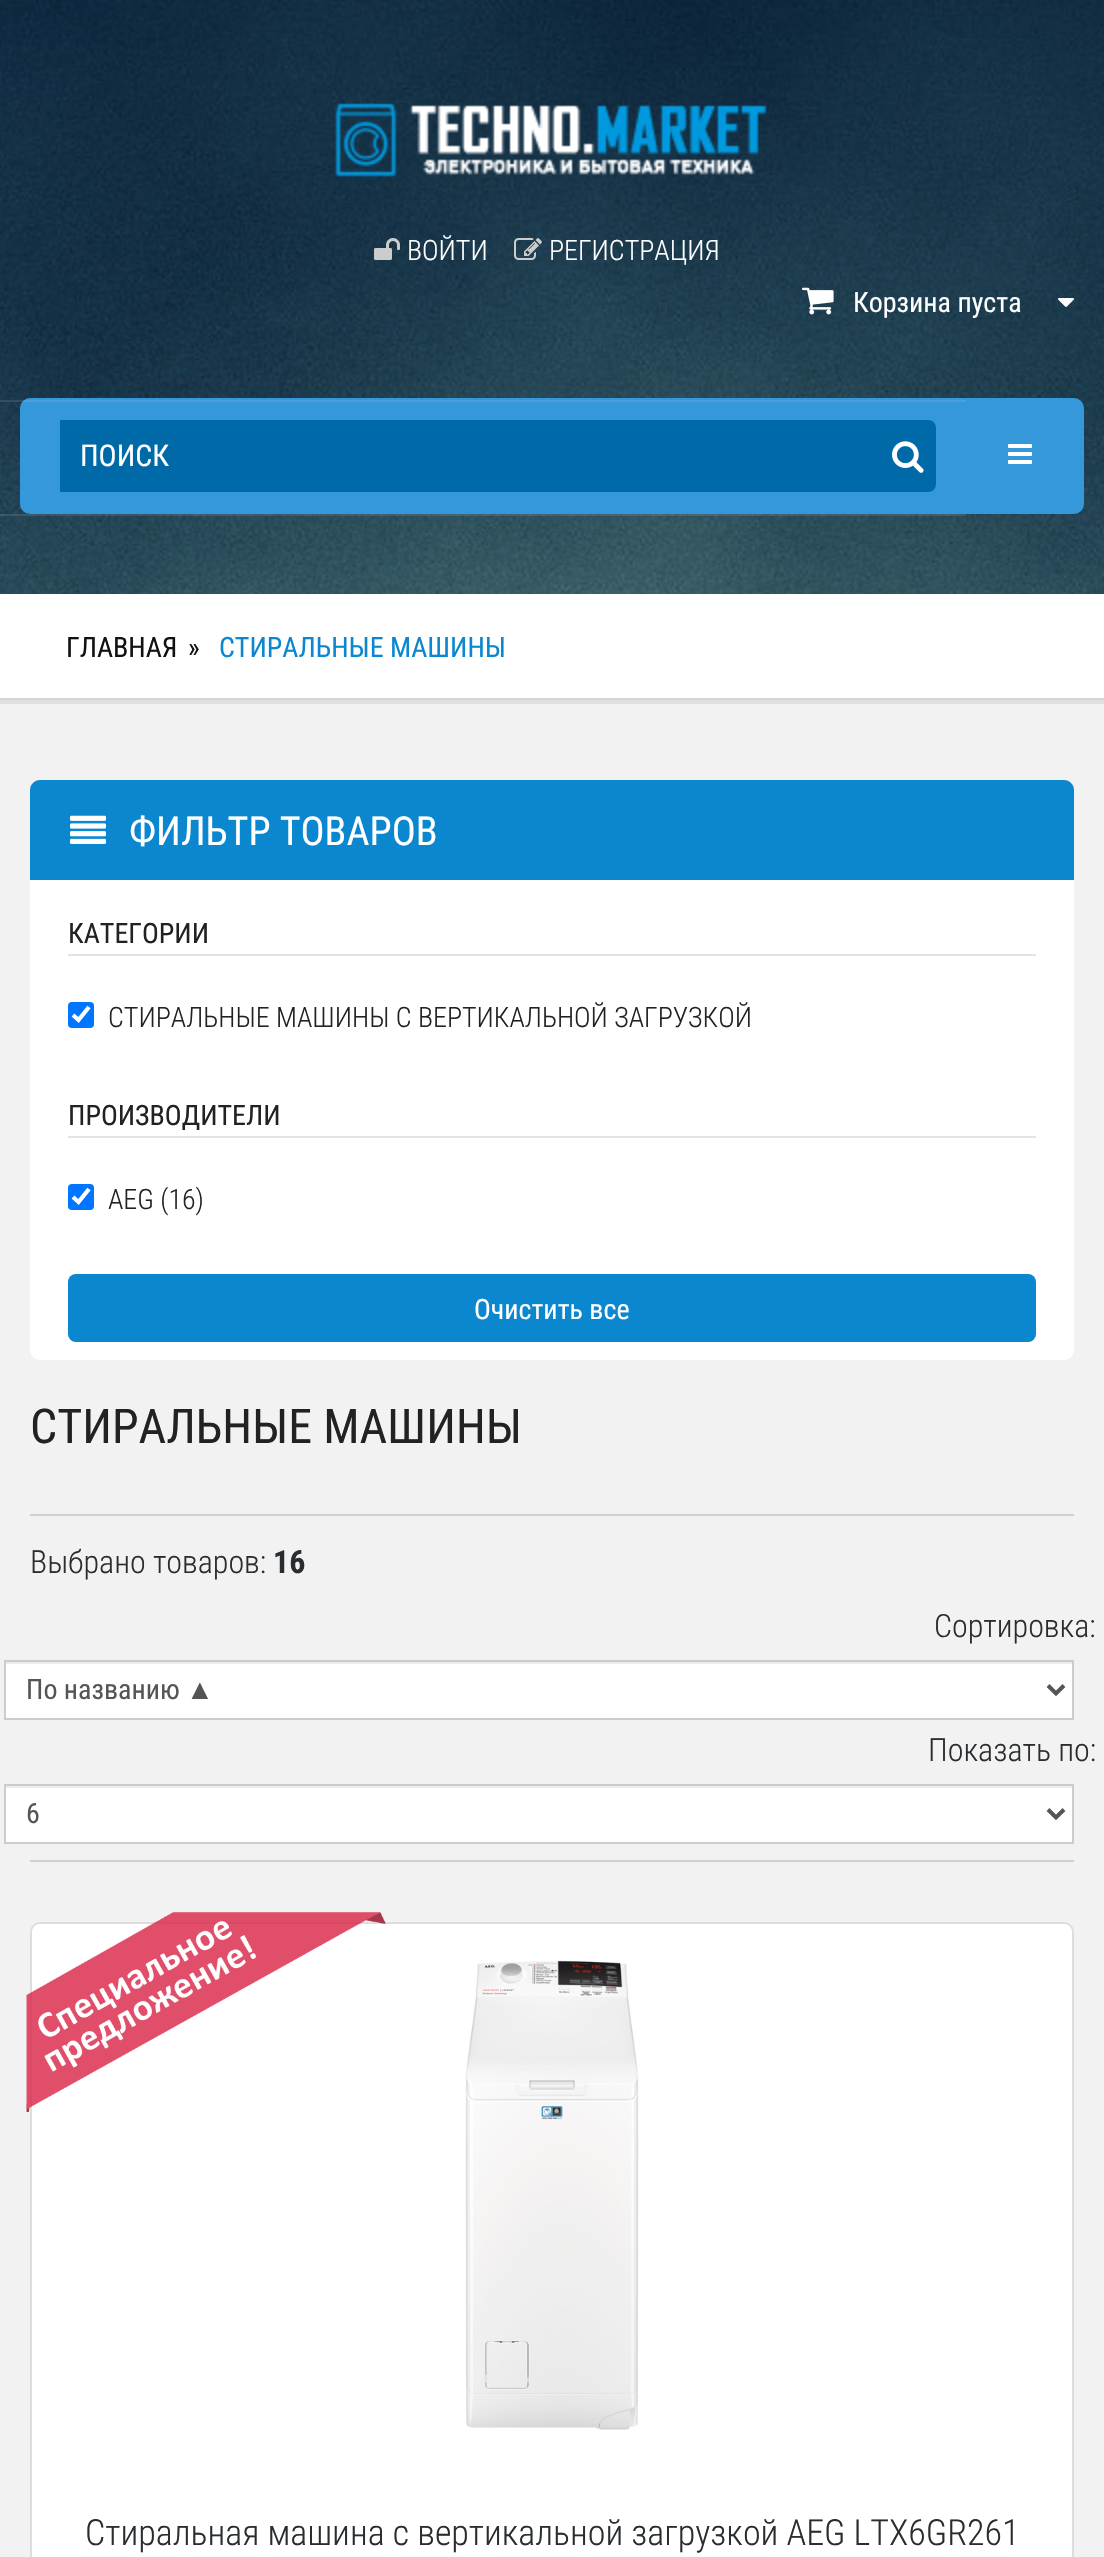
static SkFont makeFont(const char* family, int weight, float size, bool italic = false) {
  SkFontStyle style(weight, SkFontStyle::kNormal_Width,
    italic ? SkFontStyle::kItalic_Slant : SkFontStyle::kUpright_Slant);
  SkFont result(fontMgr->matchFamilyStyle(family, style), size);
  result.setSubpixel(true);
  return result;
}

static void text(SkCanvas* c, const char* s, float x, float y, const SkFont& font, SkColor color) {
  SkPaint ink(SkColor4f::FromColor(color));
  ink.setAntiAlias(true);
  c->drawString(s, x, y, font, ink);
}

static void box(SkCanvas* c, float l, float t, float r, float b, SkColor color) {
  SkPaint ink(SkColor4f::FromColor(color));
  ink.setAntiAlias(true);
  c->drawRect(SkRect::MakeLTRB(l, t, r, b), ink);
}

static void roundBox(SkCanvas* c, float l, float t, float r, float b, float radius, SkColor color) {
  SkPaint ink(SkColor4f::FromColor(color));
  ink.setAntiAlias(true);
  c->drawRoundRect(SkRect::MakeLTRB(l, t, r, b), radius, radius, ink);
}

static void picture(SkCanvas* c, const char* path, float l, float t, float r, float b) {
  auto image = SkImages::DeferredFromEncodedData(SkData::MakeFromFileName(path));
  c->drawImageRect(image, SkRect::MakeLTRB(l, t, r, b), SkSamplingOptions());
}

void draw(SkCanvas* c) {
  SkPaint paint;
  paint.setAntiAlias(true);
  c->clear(0xfff2f2f2);
  picture(c, "img_01.png", 0, 0, 1104, 594);
  picture(c, "img_02.png", 335, 103, 767, 177);
  picture(c, "img_03.png", 374, 238, 400, 260);
  SkFont face1 = makeFont("Roboto Condensed", 300, 28);
  text(c, "ВОЙТИ", 407, 260, face1, 0xffffffff);
  picture(c, "img_04.png", 514, 238, 542, 260);
  text(c, "РЕГИСТРАЦИЯ", 549, 260, face1, 0xffffffff);
  picture(c, "img_05.png", 802, 287, 834, 315);
  SkFont face2 = makeFont("Roboto Condensed", 400, 28);
  text(c, "Корзина пуста", 853, 312, face2, 0xffffffff);
  picture(c, "img_06.png", 1058, 298, 1074, 307);
  roundBox(c, 20, 398, 1084, 514, 10, 0xff3498db);
  box(c, 0, 514, 966, 516, 0x1affffff);
  box(c, 0, 400, 966, 402, 0x1affffff);
  box(c, 60, 420, 880, 492, 0xff006aa8);
  SkFont face3 = makeFont("Roboto Condensed", 400, 30);
  text(c, "ПОИСК", 80, 466, face3, 0xffffffff);
  paint.setColor(0xff006aa8);
  c->drawPath(SkPathBuilder().moveTo(880, 420).lineTo(928, 420).cubicTo(932.5f, 420, 936, 423.5f, 936, 428).lineTo(936, 484).cubicTo(936, 488.5f, 932.5f, 492, 928, 492).lineTo(880, 492).close().detach(), paint);
  picture(c, "img_07.png", 892, 441, 924, 473);
  picture(c, "img_08.png", 1008, 444, 1032, 464);
  box(c, 0, 700, 1104, 704, 0xffe0e0e0);
  box(c, 0, 594, 1104, 698, 0xffffffff);
  box(c, 0, 698, 1104, 700, 0xffd5d5d5);
  text(c, "ГЛАВНАЯ", 66, 657, face2, 0xff131211);
  text(c, "»", 188, 657, face2, 0xff131211);
  text(c, "СТИРАЛЬНЫЕ МАШИНЫ", 219, 657, face2, 0xff0a87cf);
  paint.setColor(0xff0a87cf);
  c->drawPath(SkPathBuilder().moveTo(40, 780).lineTo(1064, 780).cubicTo(1069.5f, 780, 1074, 784.5f, 1074, 790).lineTo(1074, 880).lineTo(30, 880).lineTo(30, 790).cubicTo(30, 784.5f, 34.5f, 780, 40, 780).close().detach(), paint);
  picture(c, "img_09.png", 70, 815, 106, 844);
  SkFont face4 = makeFont("Roboto Condensed", 400, 40);
  text(c, "ФИЛЬТР ТОВАРОВ", 129, 845, face4, 0xffffffff);
  box(c, 30, 880, 1074, 1256, 0xffffffff);
  box(c, 68, 954, 1036, 956, 0xffe4e4e4);
  text(c, "КАТЕГОРИИ", 68, 943, face2, 0xff222222);
  roundBox(c, 68, 1002, 94, 1028, 4, 0xff0075ff);
  paint.setStyle(SkPaint::kStroke_Style);
  paint.setStrokeWidth(4.2f);
  paint.setColor(0xffffffff);
  c->drawPath(SkPathBuilder().moveTo(73, 1015).lineTo(78.5f, 1020).lineTo(89, 1007).detach(), paint);
  text(c, "СТИРАЛЬНЫЕ МАШИНЫ С ВЕРТИКАЛЬНОЙ ЗАГРУЗКОЙ", 108, 1027, face1, 0xff222222);
  box(c, 68, 1136, 1036, 1138, 0xffe4e4e4);
  text(c, "ПРОИЗВОДИТЕЛИ", 68, 1125, face2, 0xff222222);
  roundBox(c, 68, 1184, 94, 1210, 4, 0xff0075ff);
  c->drawPath(SkPathBuilder().moveTo(73, 1197).lineTo(78.5f, 1202).lineTo(89, 1189).detach(), paint);
  text(c, "AEG (16)", 108, 1209, face1, 0xff222222);
  paint.setStyle(SkPaint::kFill_Style);
  c->drawPath(SkPathBuilder().moveTo(31, 1257).lineTo(1073, 1257).lineTo(1073, 1350).cubicTo(1073, 1355, 1069, 1359, 1064, 1359).lineTo(40, 1359).cubicTo(35, 1359, 31, 1355, 31, 1350).close().detach(), paint);
  paint.setStyle(SkPaint::kStroke_Style);
  paint.setStrokeWidth(2);
  c->drawPath(SkPathBuilder().moveTo(31, 1257).lineTo(1073, 1257).lineTo(1073, 1350).cubicTo(1073, 1355, 1069, 1359, 1064, 1359).lineTo(40, 1359).cubicTo(35, 1359, 31, 1355, 31, 1350).close().detach(), paint);
  roundBox(c, 68, 1274, 1036, 1342, 8, 0xff0a87cf);
  text(c, "Очистить все", 474, 1319, face2, 0xffffffff);
  SkFont face5 = makeFont("Roboto Condensed", 400, 48);
  text(c, "СТИРАЛЬНЫЕ МАШИНЫ", 30, 1443, face5, 0xff222222);
  box(c, 30, 1514, 1074, 1516, 0xffd0d0d0);
  box(c, 30, 1860, 1074, 1862, 0xffd0d0d0);
  SkFont face6 = makeFont("Roboto Condensed", 300, 32);
  text(c, "Выбрано товаров:", 30, 1573, face6, 0xff292d30);
  SkFont face7 = makeFont("Roboto Condensed", 700, 32);
  text(c, "16", 273, 1573, face7, 0xff292d30);
  text(c, "Сортировка:", 934, 1637, face6, 0xff292d30);
  box(c, 6, 1664, 1072, 1718, 0xffffffff);
  box(c, 6, 1662, 1072, 1664, 0xffececec);
  paint.setColor(0xffcccccc);
  c->drawRect(SkRect::MakeLTRB(5, 1661, 1073, 1719), paint);
  paint.setStrokeWidth(4);
  paint.setColor(0xff555555);
  c->drawPath(SkPathBuilder().moveTo(1048, 1685.5f).lineTo(1056, 1693.5f).lineTo(1064, 1685.5f).detach(), paint);
  text(c, "По названию", 26, 1699, face2, 0xff555555);
  SkFont face8 = makeFont("Liberation Sans", 400, 28);
  text(c, "▲", 186, 1699, face8, 0xff555555);
  text(c, "Показать по:", 928, 1761, face6, 0xff292d30);
  box(c, 6, 1788, 1072, 1842, 0xffffffff);
  box(c, 6, 1786, 1072, 1788, 0xffececec);
  paint.setStrokeWidth(2);
  paint.setColor(0xffcccccc);
  c->drawRect(SkRect::MakeLTRB(5, 1785, 1073, 1843), paint);
  paint.setStrokeWidth(4);
  paint.setColor(0xff555555);
  c->drawPath(SkPathBuilder().moveTo(1048, 1809.5f).lineTo(1056, 1817.5f).lineTo(1064, 1809.5f).detach(), paint);
  text(c, "6", 26, 1823, face2, 0xff555555);
  paint.setStyle(SkPaint::kFill_Style);
  paint.setColor(0xffffffff);
  c->drawRoundRect(SkRect::MakeLTRB(31, 1923, 1073, 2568), 9, 9, paint);
  paint.setStyle(SkPaint::kStroke_Style);
  paint.setStrokeWidth(2);
  paint.setColor(0xffdddddd);
  c->drawRoundRect(SkRect::MakeLTRB(31, 1923, 1073, 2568), 9, 9, paint);
  picture(c, "img_10.png", 26, 1912, 386, 2112);
  picture(c, "img_11.png", 465, 1960, 639, 2430);
  SkFont face9 = makeFont("Roboto Condensed", 300, 36);
  text(c, "Стиральная машина с вертикальной загрузкой AEG LTX6GR261", 85, 2545, face9, 0xff292d30);
}
